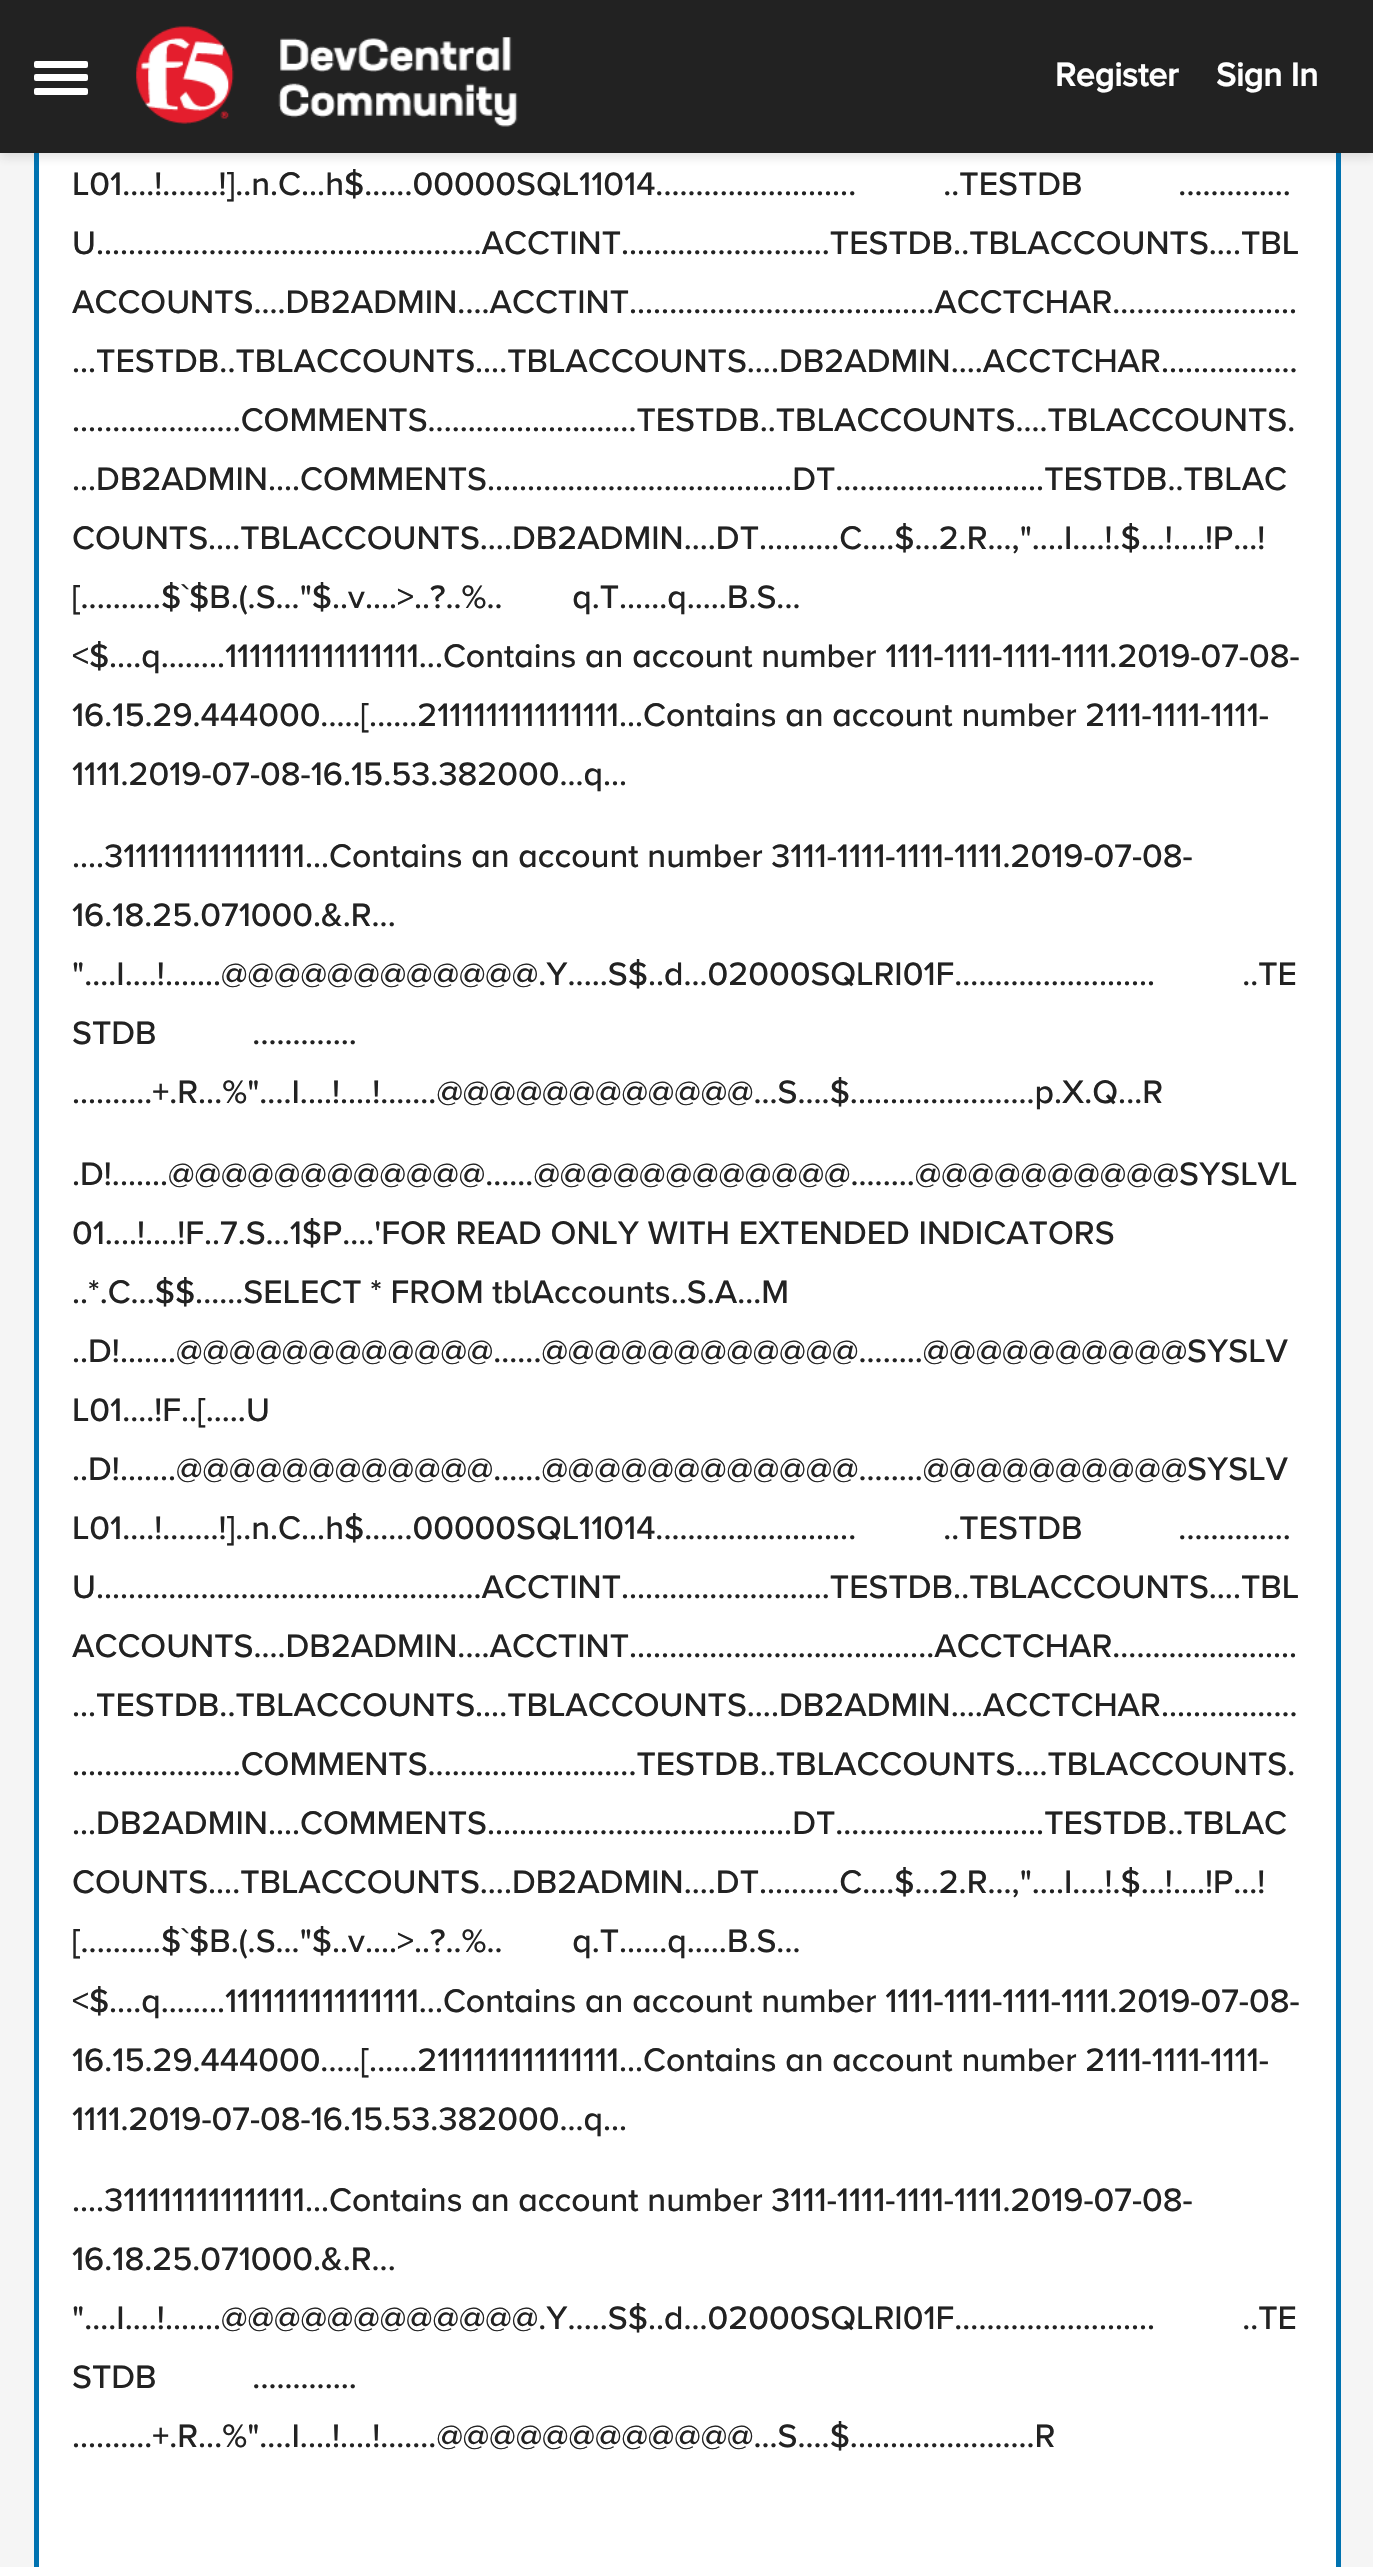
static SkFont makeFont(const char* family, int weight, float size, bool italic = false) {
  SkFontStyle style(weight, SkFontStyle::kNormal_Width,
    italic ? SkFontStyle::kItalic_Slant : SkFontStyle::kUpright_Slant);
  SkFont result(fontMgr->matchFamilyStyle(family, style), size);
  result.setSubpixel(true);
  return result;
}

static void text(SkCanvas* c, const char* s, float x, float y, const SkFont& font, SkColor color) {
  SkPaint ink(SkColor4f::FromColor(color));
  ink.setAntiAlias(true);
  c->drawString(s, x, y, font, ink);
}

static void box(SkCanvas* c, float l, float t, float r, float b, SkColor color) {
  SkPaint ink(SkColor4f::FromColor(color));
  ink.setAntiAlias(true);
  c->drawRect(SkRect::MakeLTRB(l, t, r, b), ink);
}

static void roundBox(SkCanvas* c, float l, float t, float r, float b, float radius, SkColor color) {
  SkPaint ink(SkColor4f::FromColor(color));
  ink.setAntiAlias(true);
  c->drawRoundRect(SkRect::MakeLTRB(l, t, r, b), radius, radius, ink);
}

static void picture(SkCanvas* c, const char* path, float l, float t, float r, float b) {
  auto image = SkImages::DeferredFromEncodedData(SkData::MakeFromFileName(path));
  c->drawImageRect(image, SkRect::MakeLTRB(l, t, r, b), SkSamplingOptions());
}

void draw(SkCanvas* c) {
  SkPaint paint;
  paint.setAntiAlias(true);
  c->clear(0xfff5f5f5);
  box(c, 39, 153, 1336, 2567, 0xffffffff);
  paint.setStyle(SkPaint::kStroke_Style);
  paint.setStrokeWidth(5);
  paint.setColor(0xff0072b0);
  c->drawRect(SkRect::MakeLTRB(36.5f, -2.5f, 1338.5f, 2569.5f), paint);
  paint.setStyle(SkPaint::kFill_Style);
  paint.setColor(0x1f333333);
  paint.setMaskFilter(SkMaskFilter::MakeBlur(kNormal_SkBlurStyle, 4.5f));
  c->drawRect(SkRect::MakeLTRB(0, 5, 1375, 158), paint);
  paint.setMaskFilter(nullptr);
  box(c, 0, 0, 1373, 153, 0xff222222);
  roundBox(c, 34, 61, 88, 68, 2, 0xffffffff);
  roundBox(c, 34, 74, 88, 81, 2, 0xffffffff);
  roundBox(c, 34, 88, 88, 95, 2, 0xffffffff);
  picture(c, "img_01.png", 136, 26, 518, 127);
  SkFont face1 = makeFont("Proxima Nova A", 700, 33.75f);
  text(c, "Register", 1055, 86, face1, 0xffffffff);
  text(c, "Sign In", 1216, 86, face1, 0xffffffff);
  SkFont face2 = makeFont("Proxima Nova A", 500, 33.75f);
  text(c, "L01....!.......!]..n.C...h$......00000SQL11014.........................          ..TESTDB           ..............", 72, 195, face2, 0xff222222);
  text(c, "U................................................ACCTINT..........................TESTDB..TBLACCOUNTS....TBL", 72, 254, face2, 0xff222222);
  text(c, "ACCOUNTS....DB2ADMIN....ACCTINT......................................ACCTCHAR.......................", 72, 313, face2, 0xff222222);
  text(c, "...TESTDB..TBLACCOUNTS....TBLACCOUNTS....DB2ADMIN....ACCTCHAR.................", 72, 372, face2, 0xff222222);
  text(c, ".....................COMMENTS..........................TESTDB..TBLACCOUNTS....TBLACCOUNTS.", 72, 431, face2, 0xff222222);
  text(c, "...DB2ADMIN....COMMENTS......................................DT..........................TESTDB..TBLAC", 72, 490, face2, 0xff222222);
  text(c, "COUNTS....TBLACCOUNTS....DB2ADMIN....DT..........C....$...2.R...,\"....I....!.$...!....!P...!", 72, 549, face2, 0xff222222);
  text(c, "[..........$`$B.(.S...\"$..v....>..?..%..        q.T......q.....B.S...", 72, 608, face2, 0xff222222);
  text(c, "<$....q........1111111111111111...Contains an account number 1111-1111-1111-1111.2019-07-08-", 72, 667, face2, 0xff222222);
  text(c, "16.15.29.444000.....[......2111111111111111...Contains an account number 2111-1111-1111-", 72, 726, face2, 0xff222222);
  text(c, "1111.2019-07-08-16.15.53.382000...q...", 72, 785, face2, 0xff222222);
  text(c, "....3111111111111111...Contains an account number 3111-1111-1111-1111.2019-07-08-", 72, 867, face2, 0xff222222);
  text(c, "16.18.25.071000.&.R...", 72, 926, face2, 0xff222222);
  text(c, "\"....I....!.......@@@@@@@@@@@@.Y.....S$..d...02000SQLRI01F.........................          ..TE", 72, 985, face2, 0xff222222);
  text(c, "STDB           .............", 72, 1044, face2, 0xff222222);
  text(c, "..........+.R...%\"....I....!....!.......@@@@@@@@@@@@...S....$.......................p.X.Q...R", 72, 1103, face2, 0xff222222);
  text(c, ".D!.......@@@@@@@@@@@@......@@@@@@@@@@@@........@@@@@@@@@@SYSLVL", 72, 1185, face2, 0xff222222);
  text(c, "01....!....!F..7.S...1$P....'FOR READ ONLY WITH EXTENDED INDICATORS", 72, 1244, face2, 0xff222222);
  text(c, "..*.C...$$......SELECT * FROM tblAccounts..S.A...M", 72, 1303, face2, 0xff222222);
  text(c, "..D!.......@@@@@@@@@@@@......@@@@@@@@@@@@........@@@@@@@@@@SYSLV", 72, 1362, face2, 0xff222222);
  text(c, "L01....!F..[.....U", 72, 1421, face2, 0xff222222);
  text(c, "..D!.......@@@@@@@@@@@@......@@@@@@@@@@@@........@@@@@@@@@@SYSLV", 72, 1480, face2, 0xff222222);
  text(c, "L01....!.......!]..n.C...h$......00000SQL11014.........................          ..TESTDB           ..............", 72, 1539, face2, 0xff222222);
  text(c, "U................................................ACCTINT..........................TESTDB..TBLACCOUNTS....TBL", 72, 1598, face2, 0xff222222);
  text(c, "ACCOUNTS....DB2ADMIN....ACCTINT......................................ACCTCHAR.......................", 72, 1657, face2, 0xff222222);
  text(c, "...TESTDB..TBLACCOUNTS....TBLACCOUNTS....DB2ADMIN....ACCTCHAR.................", 72, 1716, face2, 0xff222222);
  text(c, ".....................COMMENTS..........................TESTDB..TBLACCOUNTS....TBLACCOUNTS.", 72, 1775, face2, 0xff222222);
  text(c, "...DB2ADMIN....COMMENTS......................................DT..........................TESTDB..TBLAC", 72, 1834, face2, 0xff222222);
  text(c, "COUNTS....TBLACCOUNTS....DB2ADMIN....DT..........C....$...2.R...,\"....I....!.$...!....!P...!", 72, 1893, face2, 0xff222222);
  text(c, "[..........$`$B.(.S...\"$..v....>..?..%..        q.T......q.....B.S...", 72, 1952, face2, 0xff222222);
  text(c, "<$....q........1111111111111111...Contains an account number 1111-1111-1111-1111.2019-07-08-", 72, 2012, face2, 0xff222222);
  text(c, "16.15.29.444000.....[......2111111111111111...Contains an account number 2111-1111-1111-", 72, 2071, face2, 0xff222222);
  text(c, "1111.2019-07-08-16.15.53.382000...q...", 72, 2130, face2, 0xff222222);
  text(c, "....3111111111111111...Contains an account number 3111-1111-1111-1111.2019-07-08-", 72, 2211, face2, 0xff222222);
  text(c, "16.18.25.071000.&.R...", 72, 2270, face2, 0xff222222);
  text(c, "\"....I....!.......@@@@@@@@@@@@.Y.....S$..d...02000SQLRI01F.........................          ..TE", 72, 2329, face2, 0xff222222);
  text(c, "STDB           .............", 72, 2388, face2, 0xff222222);
  text(c, "..........+.R...%\"....I....!....!.......@@@@@@@@@@@@...S....$.......................R", 72, 2447, face2, 0xff222222);
}
